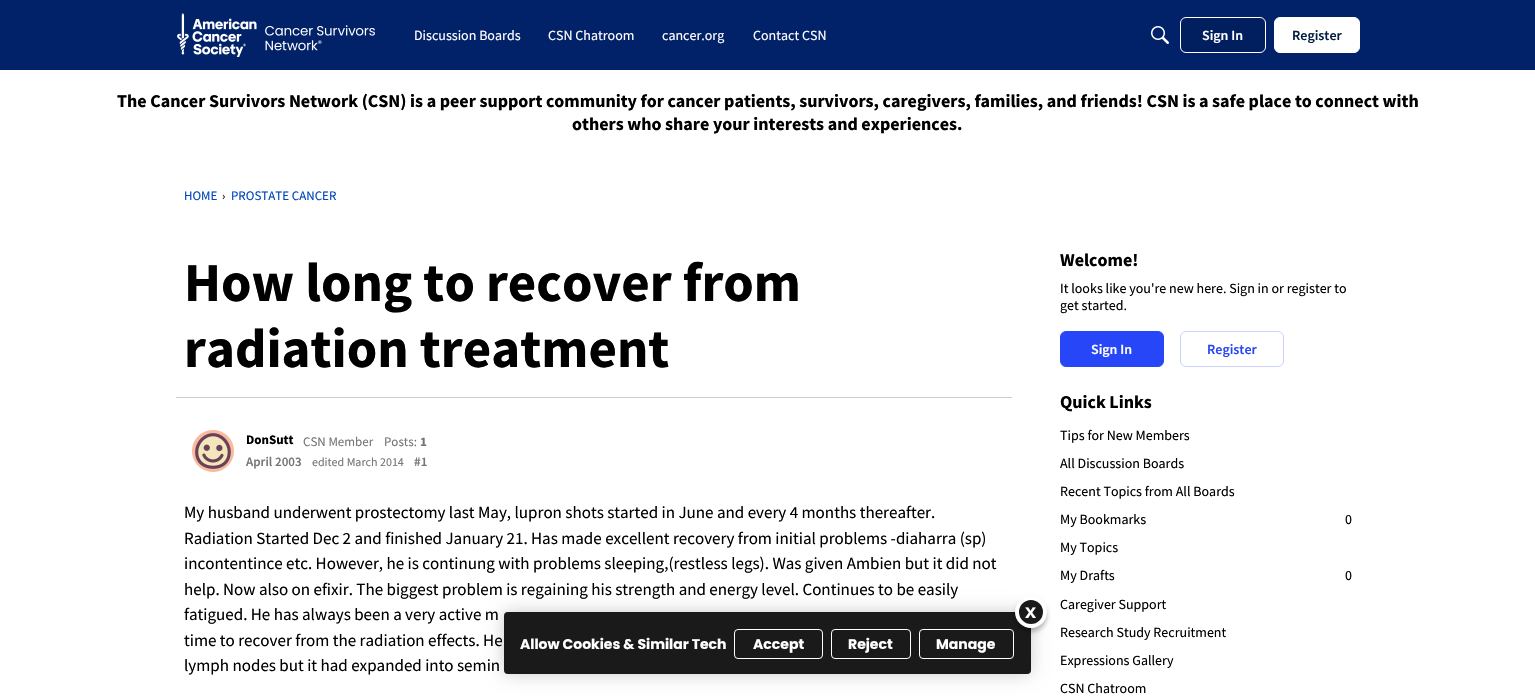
static SkFont makeFont(const char* family, int weight, float size, bool italic = false) {
  SkFontStyle style(weight, SkFontStyle::kNormal_Width,
    italic ? SkFontStyle::kItalic_Slant : SkFontStyle::kUpright_Slant);
  SkFont result(fontMgr->matchFamilyStyle(family, style), size);
  result.setSubpixel(true);
  return result;
}

static void text(SkCanvas* c, const char* s, float x, float y, const SkFont& font, SkColor color) {
  SkPaint ink(SkColor4f::FromColor(color));
  ink.setAntiAlias(true);
  c->drawString(s, x, y, font, ink);
}

static void box(SkCanvas* c, float l, float t, float r, float b, SkColor color) {
  SkPaint ink(SkColor4f::FromColor(color));
  ink.setAntiAlias(true);
  c->drawRect(SkRect::MakeLTRB(l, t, r, b), ink);
}

static void roundBox(SkCanvas* c, float l, float t, float r, float b, float radius, SkColor color) {
  SkPaint ink(SkColor4f::FromColor(color));
  ink.setAntiAlias(true);
  c->drawRoundRect(SkRect::MakeLTRB(l, t, r, b), radius, radius, ink);
}

static void picture(SkCanvas* c, const char* path, float l, float t, float r, float b) {
  auto image = SkImages::DeferredFromEncodedData(SkData::MakeFromFileName(path));
  c->drawImageRect(image, SkRect::MakeLTRB(l, t, r, b), SkSamplingOptions());
}

void draw(SkCanvas* c) {
  SkPaint paint;
  paint.setAntiAlias(true);
  c->clear(0xffffffff);
  box(c, 0, 0, 1535, 70, 0xff012169);
  picture(c, "img_01.png", 177, 13, 375, 57);
  SkFont face1 = makeFont("Source Sans Pro", 400, 14);
  text(c, "Discussion Boards", 414, 40, face1, 0xffffffff);
  text(c, "CSN Chatroom", 548, 40, face1, 0xffffffff);
  text(c, "cancer.org", 662, 40, face1, 0xffffffff);
  text(c, "Contact CSN", 753, 40, face1, 0xffffffff);
  picture(c, "img_02.png", 1151, 26, 1169, 44);
  paint.setColor(0xff011e5f);
  c->drawRoundRect(SkRect::MakeLTRB(1180.5f, 17.5f, 1265.5f, 52.5f), 5.5f, 5.5f, paint);
  paint.setStyle(SkPaint::kStroke_Style);
  paint.setStrokeWidth(1);
  paint.setColor(0xffffffff);
  c->drawRoundRect(SkRect::MakeLTRB(1180.5f, 17.5f, 1265.5f, 52.5f), 5.5f, 5.5f, paint);
  SkFont face2 = makeFont("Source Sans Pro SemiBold", 600, 14);
  text(c, "Sign In", 1202, 40, face2, 0xffffffff);
  paint.setStyle(SkPaint::kFill_Style);
  c->drawRoundRect(SkRect::MakeLTRB(1274.5f, 17.5f, 1359.5f, 52.5f), 5.5f, 5.5f, paint);
  paint.setStyle(SkPaint::kStroke_Style);
  c->drawRoundRect(SkRect::MakeLTRB(1274.5f, 17.5f, 1359.5f, 52.5f), 5.5f, 5.5f, paint);
  text(c, "Register", 1292, 40, face2, 0xff041e42);
  SkFont face3 = makeFont("Source Sans Pro", 700, 18);
  text(c, "The Cancer Survivors Network (CSN) is a peer support community for cancer patients, survivors, caregivers, families, and friends! CSN is a safe place to connect with", 117, 107, face3, 0xff000000);
  text(c, "others who share your interests and experiences.", 572, 130, face3, 0xff000000);
  SkFont face4 = makeFont("Source Sans Pro", 400, 13);
  text(c, "HOME", 184, 200, face4, 0xff0047bb);
  SkFont face5 = makeFont("Source Sans Pro", 400, 12);
  text(c, "›", 222, 200, face5, 0xff000000);
  text(c, "PROSTATE CANCER", 231, 200, face4, 0xff0047bb);
  SkFont face6 = makeFont("Source Sans Pro", 700, 55);
  text(c, "How long to recover from", 184, 301, face6, 0xff000000);
  text(c, "radiation treatment", 184, 367, face6, 0xff000000);
  box(c, 176, 397, 1012, 398, 0xffcccccc);
  picture(c, "img_03.png", 192, 430, 234, 472);
  SkFont face7 = makeFont("Source Sans Pro", 700, 13);
  text(c, "DonSutt", 246, 444, face7, 0xff000000);
  text(c, "CSN Member", 303, 446, face4, 0xff767676);
  text(c, "Posts:", 384, 446, face4, 0xff767676);
  text(c, "1", 420, 446, face7, 0xff767676);
  SkFont face8 = makeFont("Source Sans Pro SemiBold", 600, 13);
  text(c, "April 2003", 246, 466, face8, 0xff767676);
  text(c, "edited March 2014", 312, 466, face5, 0xff767676);
  text(c, "#1", 414, 466, face8, 0xff767676);
  SkFont face9 = makeFont("Source Sans Pro", 400, 17);
  text(c, "My husband underwent prostectomy last May, lupron shots started in June and every 4 months thereafter.", 184, 518, face9, 0xff000000);
  text(c, "Radiation Started Dec 2 and finished January 21. Has made excellent recovery from initial problems -diaharra (sp)", 184, 544, face9, 0xff000000);
  text(c, "incontentince etc. However, he is continung with problems sleeping,(restless legs). Was given Ambien but it did not", 184, 569, face9, 0xff000000);
  text(c, "help. Now also on efixir. The biggest problem is regaining his strength and energy level. Continues to be easily", 184, 595, face9, 0xff000000);
  text(c, "fatigued. He has always been a very active m", 184, 620, face9, 0xff000000);
  text(c, "time to recover from the radiation effects. He", 184, 646, face9, 0xff000000);
  text(c, "lymph nodes but it had expanded into semin", 184, 671, face9, 0xff000000);
  text(c, "Welcome!", 1060, 266, face3, 0xff000000);
  text(c, "It looks like you're new here. Sign in or register to", 1060, 293, face1, 0xff000000);
  text(c, "get started.", 1060, 310, face1, 0xff000000);
  paint.setStyle(SkPaint::kFill_Style);
  paint.setColor(0xff2746f8);
  c->drawRoundRect(SkRect::MakeLTRB(1060.5f, 331.5f, 1163.5f, 366.5f), 5.5f, 5.5f, paint);
  paint.setStyle(SkPaint::kStroke_Style);
  c->drawRoundRect(SkRect::MakeLTRB(1060.5f, 331.5f, 1163.5f, 366.5f), 5.5f, 5.5f, paint);
  text(c, "Sign In", 1091, 354, face2, 0xffffffff);
  paint.setColor(0xffcbd3fd);
  c->drawRoundRect(SkRect::MakeLTRB(1180.5f, 331.5f, 1283.5f, 366.5f), 5.5f, 5.5f, paint);
  text(c, "Register", 1207, 354, face2, 0xff2746f8);
  text(c, "Quick Links", 1060, 408, face3, 0xff000000);
  text(c, "Tips for New Members", 1060, 440, face1, 0xff000000);
  text(c, "All Discussion Boards", 1060, 468, face1, 0xff000000);
  text(c, "Recent Topics from All Boards", 1060, 496, face1, 0xff000000);
  text(c, "My Bookmarks", 1060, 524, face1, 0xff000000);
  text(c, "0", 1345, 524, face1, 0xff000000);
  text(c, "My Topics", 1060, 552, face1, 0xff000000);
  text(c, "My Drafts", 1060, 580, face1, 0xff000000);
  text(c, "0", 1345, 580, face1, 0xff000000);
  text(c, "Caregiver Support", 1060, 609, face1, 0xff000000);
  text(c, "Research Study Recruitment", 1060, 637, face1, 0xff000000);
  text(c, "Expressions Gallery", 1060, 665, face1, 0xff000000);
  text(c, "CSN Chatroom", 1060, 693, face1, 0xff000000);
  paint.setStyle(SkPaint::kFill_Style);
  paint.setColor(0x33000000);
  paint.setMaskFilter(SkMaskFilter::MakeBlur(kNormal_SkBlurStyle, 9));
  c->drawRoundRect(SkRect::MakeLTRB(504, 612, 1031, 674), 4, 4, paint);
  paint.setMaskFilter(nullptr);
  roundBox(c, 504, 612, 1031, 674, 4, 0xff1a1a1a);
  paint.setStyle(SkPaint::kStroke_Style);
  paint.setColor(0x331a1a1a);
  c->drawRoundRect(SkRect::MakeLTRB(504.5f, 612.5f, 1030.5f, 673.5f), 3.5f, 3.5f, paint);
  paint.setColor(0xffffffff);
  c->drawRoundRect(SkRect::MakeLTRB(919.5f, 629.5f, 1013.5f, 658.5f), 3.5f, 3.5f, paint);
  paint.setStyle(SkPaint::kFill_Style);
  paint.setColor(0x40000000);
  paint.setMaskFilter(SkMaskFilter::MakeBlur(kNormal_SkBlurStyle, 2));
  c->drawRoundRect(SkRect::MakeLTRB(1015, 600, 1047, 632), 16, 16, paint);
  paint.setMaskFilter(nullptr);
  paint.setColor(0xff1a1a1a);
  c->drawCircle(1031, 612, 14, paint);
  paint.setStyle(SkPaint::kStroke_Style);
  paint.setStrokeWidth(4);
  paint.setColor(0xffffffff);
  c->drawCircle(1031, 612, 14, paint);
  SkFont face10 = makeFont("Liberation Sans", 700, 20);
  text(c, "x", 1025, 618, face10, 0xffffffff);
  SkFont face11 = makeFont("Poppins", 700, 14);
  text(c, "Allow Cookies & Similar Tech", 520, 649, face11, 0xffffffff);
  paint.setStrokeWidth(1);
  c->drawRoundRect(SkRect::MakeLTRB(734.5f, 629.5f, 822.5f, 658.5f), 3.5f, 3.5f, paint);
  text(c, "Accept", 753, 649, face11, 0xffffffff);
  c->drawRoundRect(SkRect::MakeLTRB(831.5f, 629.5f, 910.5f, 658.5f), 3.5f, 3.5f, paint);
  text(c, "Reject", 848, 649, face11, 0xffffffff);
  text(c, "Manage", 936, 649, face11, 0xffffffff);
}
